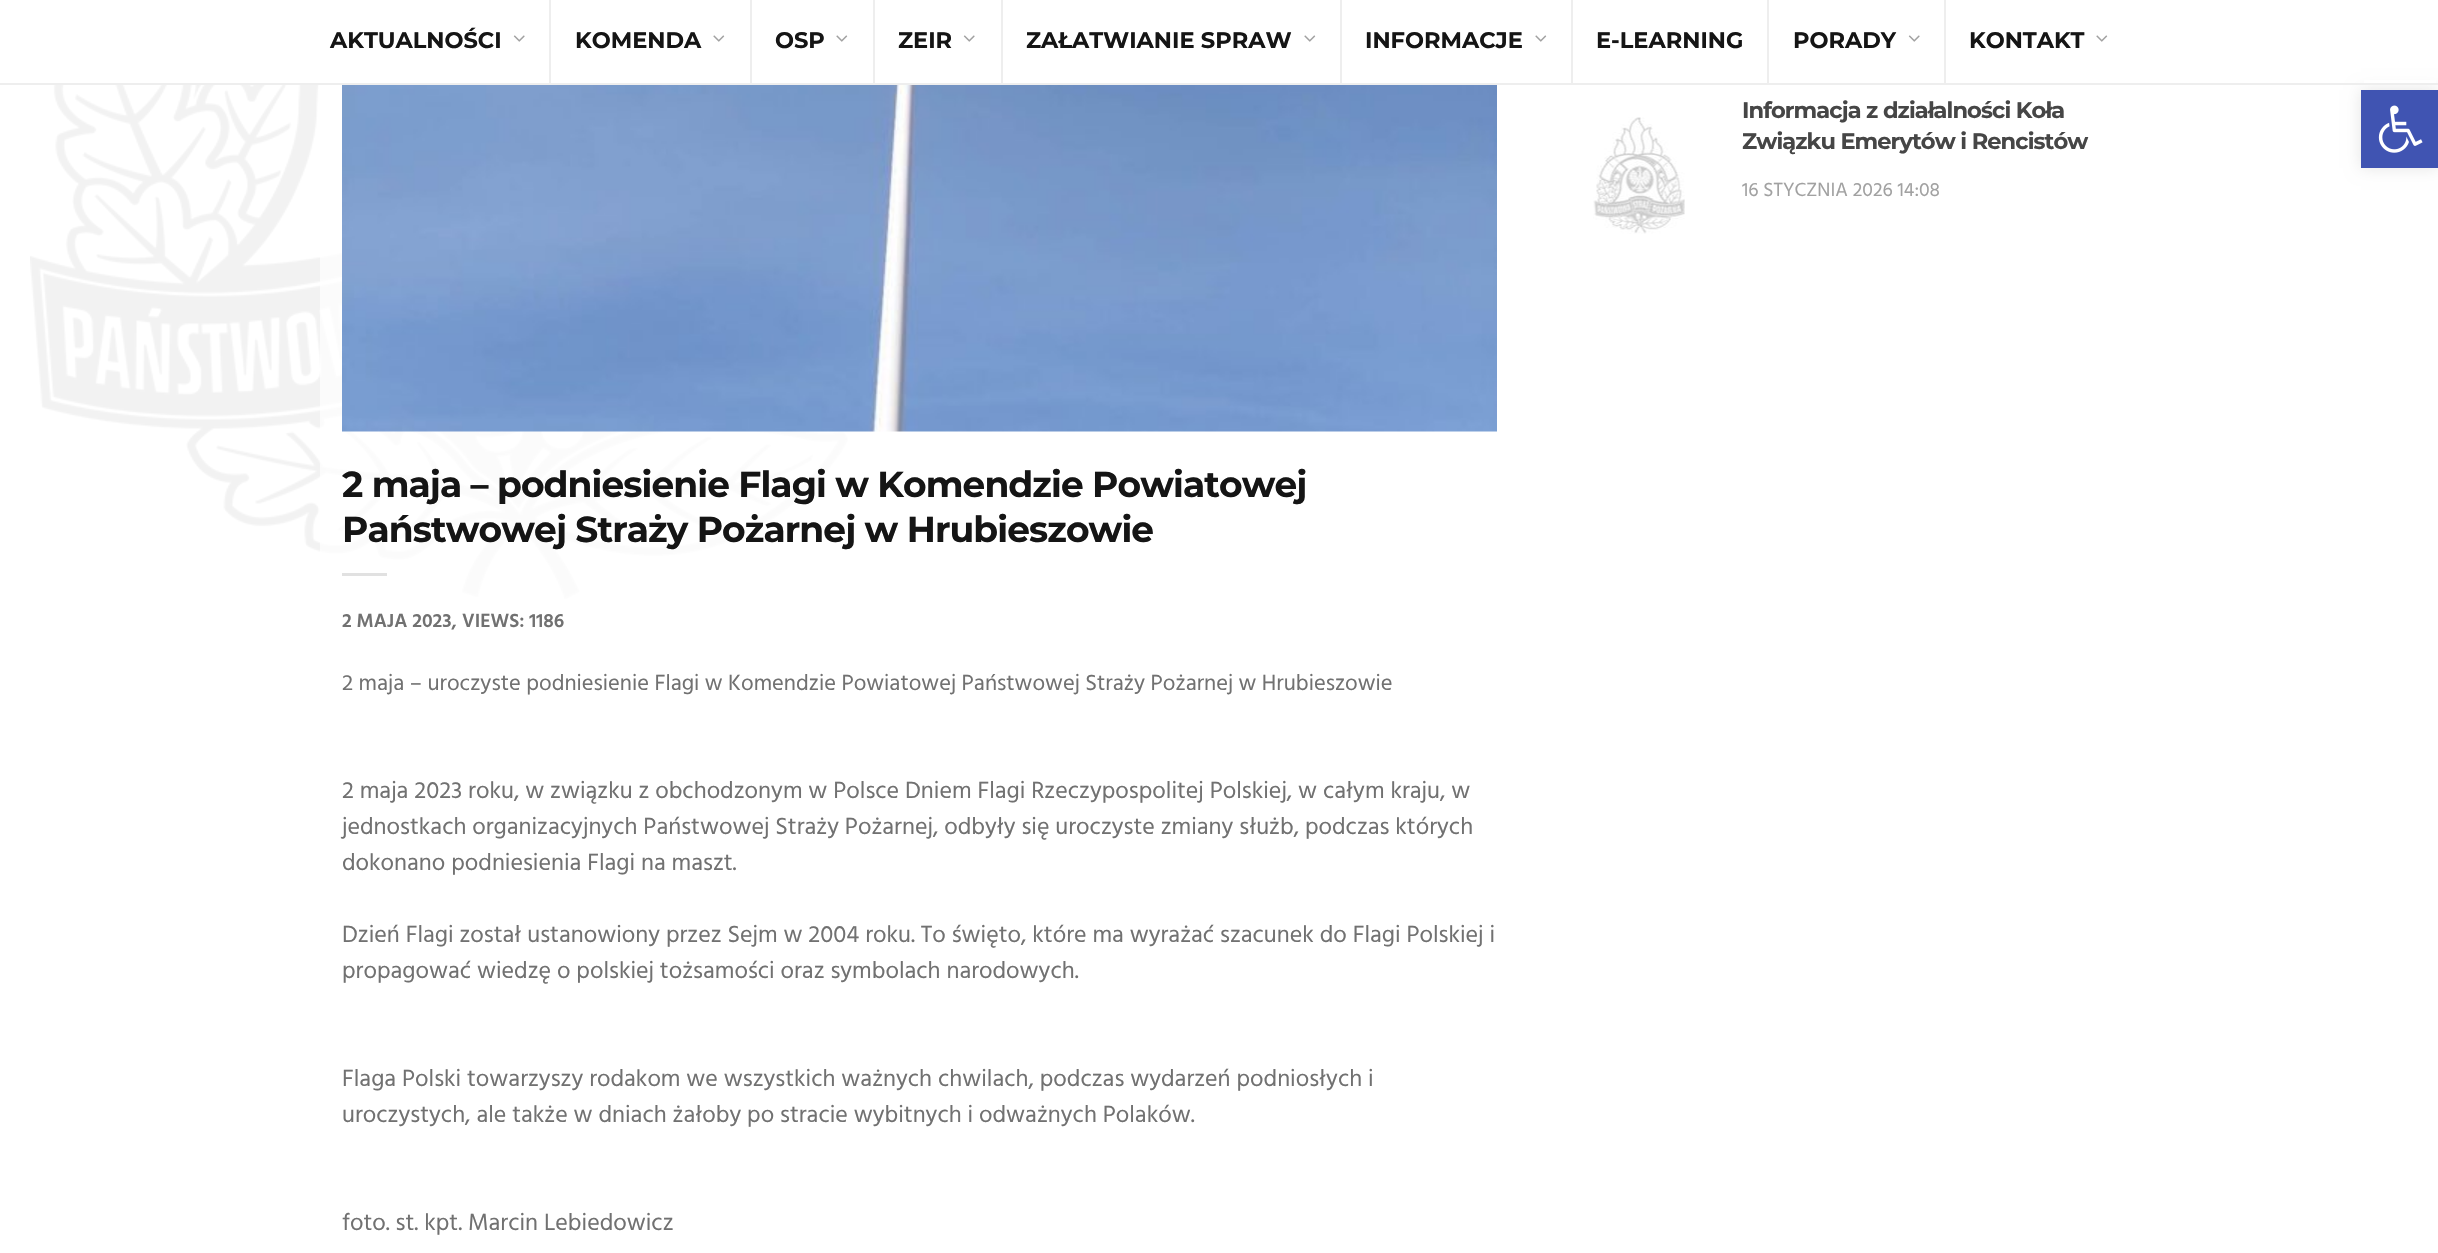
static SkFont makeFont(const char* family, int weight, float size, bool italic = false) {
  SkFontStyle style(weight, SkFontStyle::kNormal_Width,
    italic ? SkFontStyle::kItalic_Slant : SkFontStyle::kUpright_Slant);
  SkFont result(fontMgr->matchFamilyStyle(family, style), size);
  result.setSubpixel(true);
  return result;
}

static void text(SkCanvas* c, const char* s, float x, float y, const SkFont& font, SkColor color) {
  SkPaint ink(SkColor4f::FromColor(color));
  ink.setAntiAlias(true);
  c->drawString(s, x, y, font, ink);
}

static void spacedText(SkCanvas* c, const char* s, float x, float y, const SkFont& font, const SkPaint& ink, float letter, float word) {
  std::vector<SkGlyphID> glyphs(font.countText(s, strlen(s), SkTextEncoding::kUTF8));
  std::vector<float> xs(glyphs.size());
  font.textToGlyphs(s, strlen(s), SkTextEncoding::kUTF8, glyphs);
  font.getXPos(glyphs, xs, x);
  float extra = 0;
  for (size_t i = 0; i < glyphs.size(); i++) {
    xs[i] += extra;
    extra += letter + word * (glyphs[i] == font.unicharToGlyph(' '));
  }
  c->drawTextBlob(SkTextBlob::MakeFromPosHGlyphs(glyphs, xs, y, font), 0, 0, ink);
}

static void box(SkCanvas* c, float l, float t, float r, float b, SkColor color) {
  SkPaint ink(SkColor4f::FromColor(color));
  ink.setAntiAlias(true);
  c->drawRect(SkRect::MakeLTRB(l, t, r, b), ink);
}

static void picture(SkCanvas* c, const char* path, float l, float t, float r, float b) {
  auto image = SkImages::DeferredFromEncodedData(SkData::MakeFromFileName(path));
  c->drawImageRect(image, SkRect::MakeLTRB(l, t, r, b), SkSamplingOptions());
}

void draw(SkCanvas* c) {
  SkPaint paint;
  paint.setAntiAlias(true);
  c->clear(0xffffffff);
  picture(c, "img_01.png", 30, 85, 848, 599);
  paint.setColor(0x1a000000);
  paint.setMaskFilter(SkMaskFilter::MakeBlur(kNormal_SkBlurStyle, 7.5f));
  c->drawRect(SkRect::MakeLTRB(2361, 90, 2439, 168), paint);
  paint.setMaskFilter(nullptr);
  box(c, 2364, 80, 2436, 83, 0xffffffff);
  box(c, 0, 83, 2438, 85, 0xffeeeeee);
  box(c, 549, 0, 551, 83, 0xffeeeeee);
  SkFont face1 = makeFont("Montserrat", 700, 22.5f);
  text(c, "AKTUALNOŚCI", 330, 48, face1, 0xff151515);
  picture(c, "img_02.png", 513, 35, 525, 42);
  box(c, 750, 0, 752, 83, 0xffeeeeee);
  text(c, "KOMENDA", 575, 48, face1, 0xff151515);
  picture(c, "img_03.png", 713, 35, 725, 42);
  box(c, 873, 0, 875, 83, 0xffeeeeee);
  text(c, "OSP", 775, 48, face1, 0xff151515);
  picture(c, "img_03.png", 836, 35, 848, 42);
  box(c, 1001, 0, 1003, 83, 0xffeeeeee);
  text(c, "ZEIR", 898, 48, face1, 0xff151515);
  picture(c, "img_02.png", 963, 35, 975, 42);
  box(c, 1340, 0, 1342, 83, 0xffeeeeee);
  text(c, "ZAŁATWIANIE SPRAW", 1026, 48, face1, 0xff151515);
  picture(c, "img_03.png", 1304, 35, 1316, 42);
  box(c, 1571, 0, 1573, 83, 0xffeeeeee);
  text(c, "INFORMACJE", 1365, 48, face1, 0xff151515);
  picture(c, "img_03.png", 1535, 35, 1547, 42);
  box(c, 1767, 0, 1769, 83, 0xffeeeeee);
  text(c, "E-LEARNING", 1596, 48, face1, 0xff151515);
  box(c, 1944, 0, 1946, 83, 0xffeeeeee);
  text(c, "PORADY", 1793, 48, face1, 0xff151515);
  picture(c, "img_02.png", 1908, 35, 1920, 42);
  text(c, "KONTAKT", 1969, 48, face1, 0xff151515);
  picture(c, "img_03.png", 2096, 35, 2108, 42);
  box(c, 320, 85, 848, 599, 0xb3ffffff);
  picture(c, "img_04.png", 1593, 117, 1685, 234);
  paint.setColor(0xff464646);
  spacedText(c, "Informacja z działalności Koła", 1742, 118, face1, paint, -0.9f, 0);
  spacedText(c, "Związku Emerytów i Rencistów", 1742, 149, face1, paint, -0.9f, 0);
  SkFont face2 = makeFont("Hind", 400, 19.5f);
  text(c, "16 STYCZNIA 2026 14:08", 1742, 196, face2, 0xffa1a1a1);
  picture(c, "img_05.png", 342, 85, 1497, 432);
  SkFont face3 = makeFont("Montserrat", 700, 36);
  paint.setColor(0xff151515);
  spacedText(c, "2 maja – podniesienie Flagi w Komendzie Powiatowej", 342, 497, face3, paint, -0.9f, 0);
  spacedText(c, "Państwowej Straży Pożarnej w Hrubieszowie", 342, 542, face3, paint, -0.9f, 0);
  box(c, 342, 573, 387, 576, 0xffe1e1e1);
  SkFont face4 = makeFont("Hind", 600, 19.5f);
  text(c, "2 MAJA 2023,", 342, 627, face4, 0xff717171);
  text(c, "VIEWS: 1186", 462, 627, face4, 0xff717171);
  SkFont face5 = makeFont("Hind", 400, 22.5f);
  text(c, "2 maja – uroczyste podniesienie Flagi w Komendzie Powiatowej Państwowej Straży Pożarnej w Hrubieszowie", 342, 690, face5, 0xff717171);
  SkFont face6 = makeFont("Hind", 400, 24);
  text(c, "2 maja 2023 roku, w związku z obchodzonym w Polsce Dniem Flagi Rzeczypospolitej Polskiej, w całym kraju, w", 342, 798, face6, 0xff717171);
  text(c, "jednostkach organizacyjnych Państwowej Straży Pożarnej, odbyły się uroczyste zmiany służb, podczas których", 342, 834, face6, 0xff717171);
  text(c, "dokonano podniesienia Flagi na maszt.", 342, 870, face6, 0xff717171);
  text(c, "Dzień Flagi został ustanowiony przez Sejm w 2004 roku. To święto, które ma wyrażać szacunek do Flagi Polskiej i", 342, 942, face6, 0xff717171);
  text(c, "propagować wiedzę o polskiej tożsamości oraz symbolach narodowych.", 342, 978, face6, 0xff717171);
  text(c, "Flaga Polski towarzyszy rodakom we wszystkich ważnych chwilach, podczas wydarzeń podniosłych i", 342, 1086, face6, 0xff717171);
  text(c, "uroczystych, ale także w dniach żałoby po stracie wybitnych i odważnych Polaków.", 342, 1122, face6, 0xff717171);
  text(c, "foto. st. kpt. Marcin Lebiedowicz", 342, 1230, face6, 0xff717171);
  box(c, 2361, 90, 2438, 168, 0xff4054b2);
  picture(c, "img_06.png", 2378, 105, 2423, 153);
}
